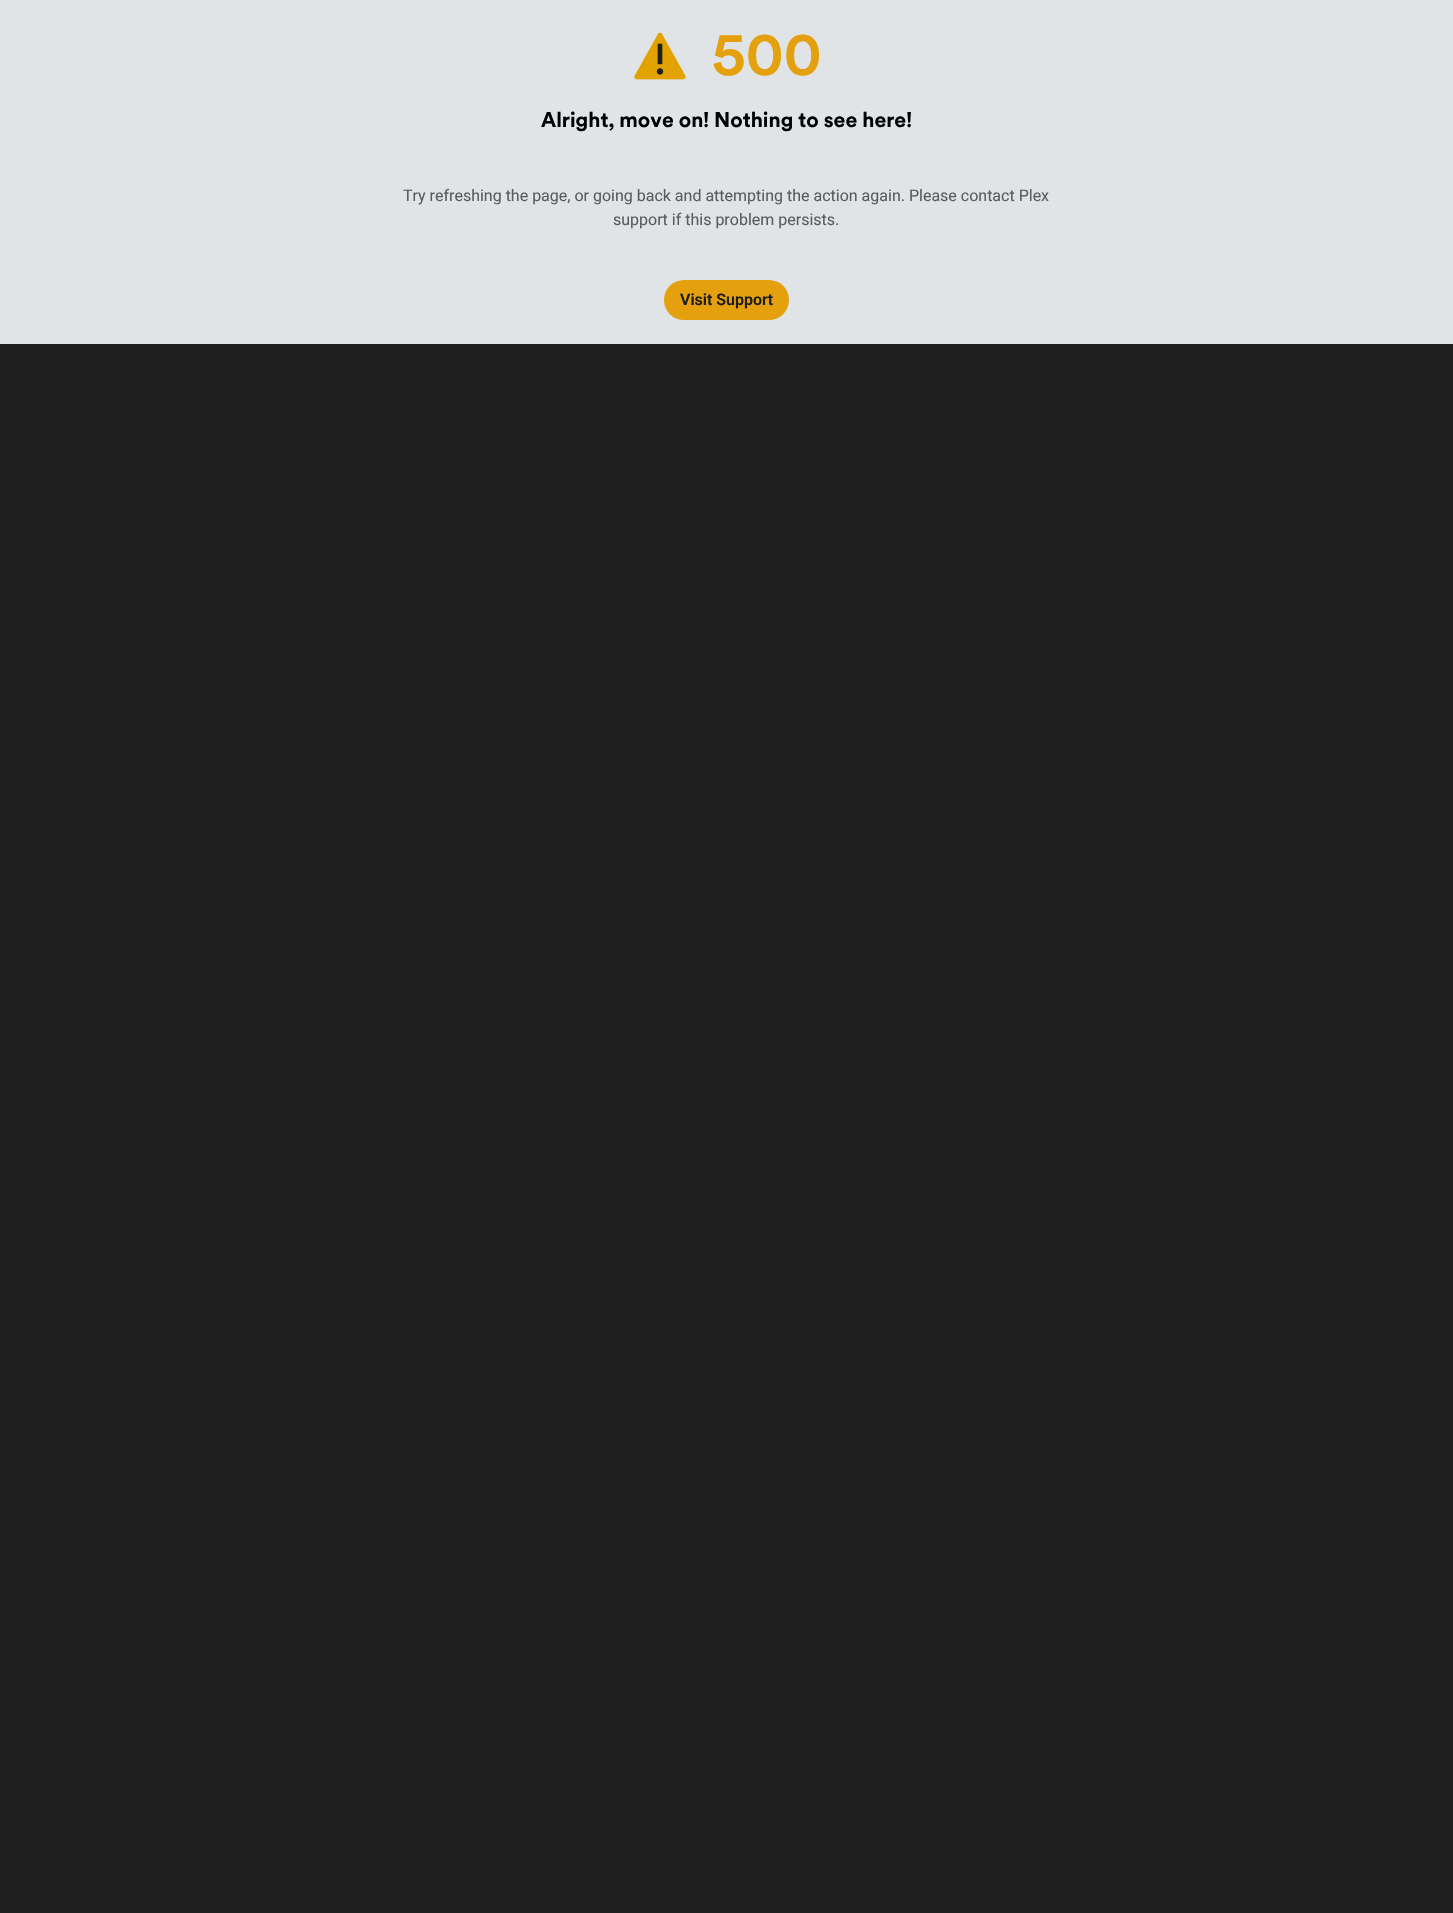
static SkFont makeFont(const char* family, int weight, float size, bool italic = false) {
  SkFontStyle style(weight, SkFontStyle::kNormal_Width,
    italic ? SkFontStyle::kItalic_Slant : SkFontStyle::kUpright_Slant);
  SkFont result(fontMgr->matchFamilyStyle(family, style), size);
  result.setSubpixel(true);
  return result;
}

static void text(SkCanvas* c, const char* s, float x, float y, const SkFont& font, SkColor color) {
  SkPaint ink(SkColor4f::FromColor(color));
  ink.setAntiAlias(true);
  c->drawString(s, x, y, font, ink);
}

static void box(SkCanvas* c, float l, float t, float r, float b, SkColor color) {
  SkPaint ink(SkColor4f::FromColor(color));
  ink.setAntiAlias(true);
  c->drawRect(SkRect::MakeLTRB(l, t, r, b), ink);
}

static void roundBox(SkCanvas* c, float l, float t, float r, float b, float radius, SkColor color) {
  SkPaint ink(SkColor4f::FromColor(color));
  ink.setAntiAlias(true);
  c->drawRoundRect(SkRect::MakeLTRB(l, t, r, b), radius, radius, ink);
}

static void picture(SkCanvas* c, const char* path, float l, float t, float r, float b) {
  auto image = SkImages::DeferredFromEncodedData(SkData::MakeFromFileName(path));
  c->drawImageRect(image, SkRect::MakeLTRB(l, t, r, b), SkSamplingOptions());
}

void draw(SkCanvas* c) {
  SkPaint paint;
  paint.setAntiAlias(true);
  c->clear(0xff1e1e1e);
  box(c, 0, 0, 1453, 344, 0xffe0e4e7);
  picture(c, "img_01.png", 634, 32, 686, 80);
  SkFont face1 = makeFont("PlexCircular", 700, 56);
  text(c, "500", 712, 75, face1, 0xffe5a00d);
  SkFont face2 = makeFont("PlexCircular", 700, 21);
  text(c, "Alright, move on! Nothing to see here!", 541, 127, face2, 0xff000000);
  SkFont face3 = makeFont("Roboto", 400, 16);
  text(c, "Try refreshing the page, or going back and attempting the action again. Please contact Plex", 403, 201, face3, 0xff5a5b5c);
  text(c, "support if this problem persists.", 613, 225, face3, 0xff5a5b5c);
  roundBox(c, 664, 280, 789, 320, 20, 0xffe5a00d);
  SkFont face4 = makeFont("Roboto", 600, 16);
  text(c, "Visit Support", 680, 305, face4, 0xff1c1c1c);
}
